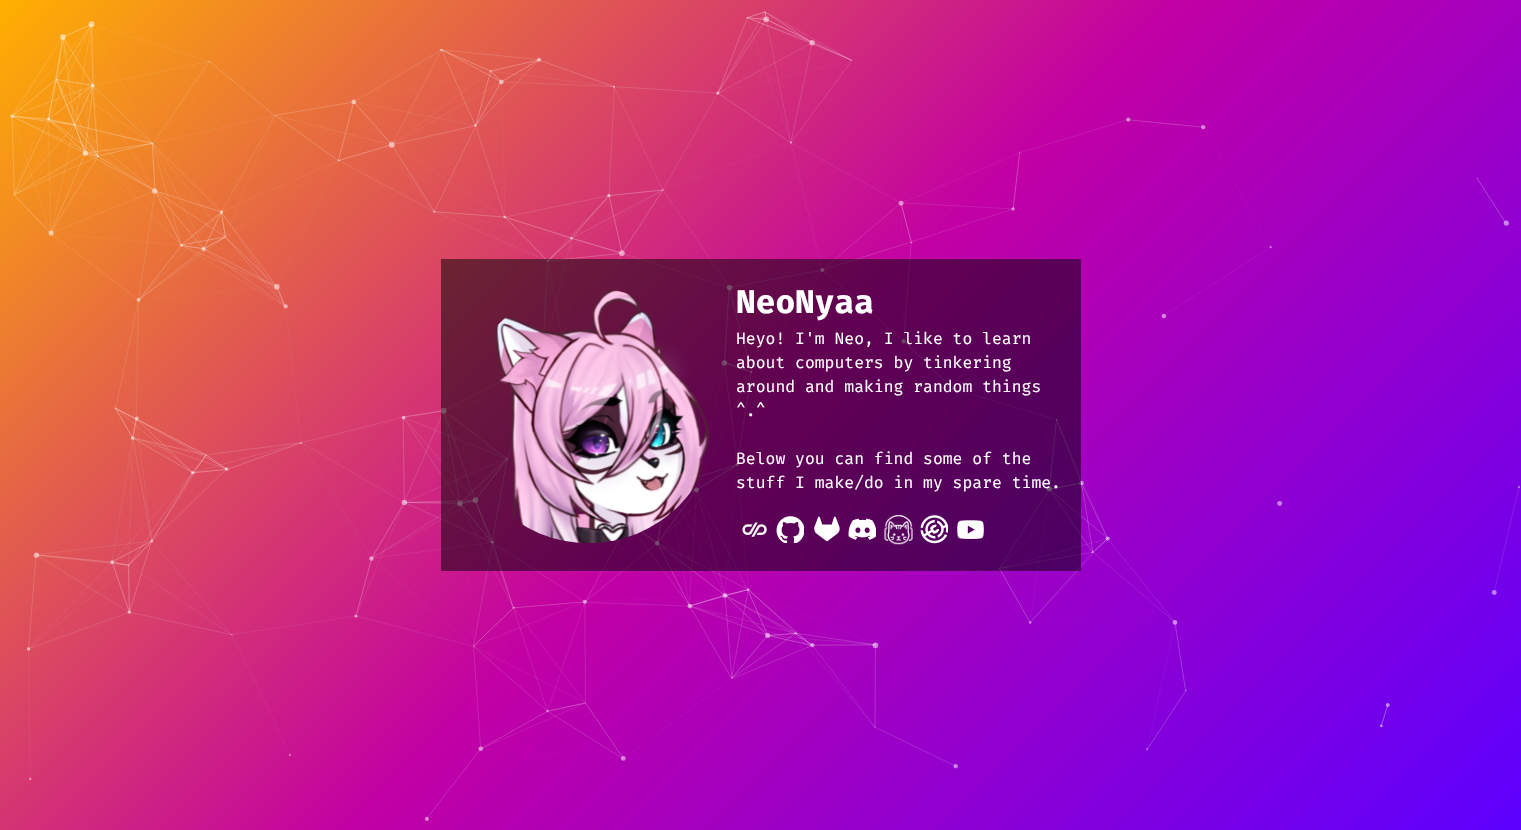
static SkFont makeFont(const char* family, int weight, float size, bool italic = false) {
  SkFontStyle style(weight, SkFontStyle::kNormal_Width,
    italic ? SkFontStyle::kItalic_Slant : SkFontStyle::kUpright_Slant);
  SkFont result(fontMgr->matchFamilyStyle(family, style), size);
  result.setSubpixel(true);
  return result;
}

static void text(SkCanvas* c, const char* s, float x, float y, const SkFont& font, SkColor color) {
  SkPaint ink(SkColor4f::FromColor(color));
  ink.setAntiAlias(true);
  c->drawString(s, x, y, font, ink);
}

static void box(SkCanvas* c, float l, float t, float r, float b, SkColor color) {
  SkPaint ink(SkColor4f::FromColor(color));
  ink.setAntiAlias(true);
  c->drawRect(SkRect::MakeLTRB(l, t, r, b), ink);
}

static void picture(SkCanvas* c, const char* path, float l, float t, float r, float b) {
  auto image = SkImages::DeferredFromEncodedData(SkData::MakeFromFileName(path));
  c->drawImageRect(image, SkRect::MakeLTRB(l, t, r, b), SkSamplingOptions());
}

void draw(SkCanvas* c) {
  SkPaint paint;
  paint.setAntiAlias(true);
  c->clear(0xffffffff);
  {
    const SkColor colors[] = {0xffffb000, 0xffc200a4, 0xff5c00ff};
    const float stops[] = {0, 0.5f, 1};
    const SkPoint ends[] = {{173, -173}, {1348, 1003}};
    paint.setShader(SkGradientShader::MakeLinear(ends, colors, stops, 3, SkTileMode::kClamp));
    paint.setAlpha(255);
  }
  c->drawRect(SkRect::MakeLTRB(0, 0, 1521, 830), paint);
  picture(c, "img_01.png", 10, 11, 1520, 821);
  box(c, 441, 259, 1081, 571, 0x80000000);
  picture(c, "img_02.png", 495, 289, 710, 543);
  SkFont face1 = makeFont("Fira Code", 700, 32);
  text(c, "NeoNyaa", 736, 313, face1, 0xffffffff);
  SkFont face2 = makeFont("Fira Code", 400, 16);
  text(c, "Heyo! I'm Neo, I like to learn", 736, 344, face2, 0xffffffff);
  text(c, "about computers by tinkering", 736, 368, face2, 0xffffffff);
  text(c, "around and making random things", 736, 392, face2, 0xffffffff);
  text(c, "^.^", 736, 416, face2, 0xffffffff);
  text(c, "Below you can find some of the", 736, 464, face2, 0xffffffff);
  text(c, "stuff I make/do in my spare time.", 736, 488, face2, 0xffffffff);
  picture(c, "img_03.png", 742, 522, 767, 537);
  picture(c, "img_04.png", 776, 516, 804, 543);
  picture(c, "img_05.png", 814, 516, 840, 542);
  picture(c, "img_06.png", 848, 518, 876, 540);
  picture(c, "img_07.png", 884, 515, 913, 545);
  picture(c, "img_08.png", 920, 515, 948, 544);
  picture(c, "img_09.png", 957, 520, 984, 539);
}
